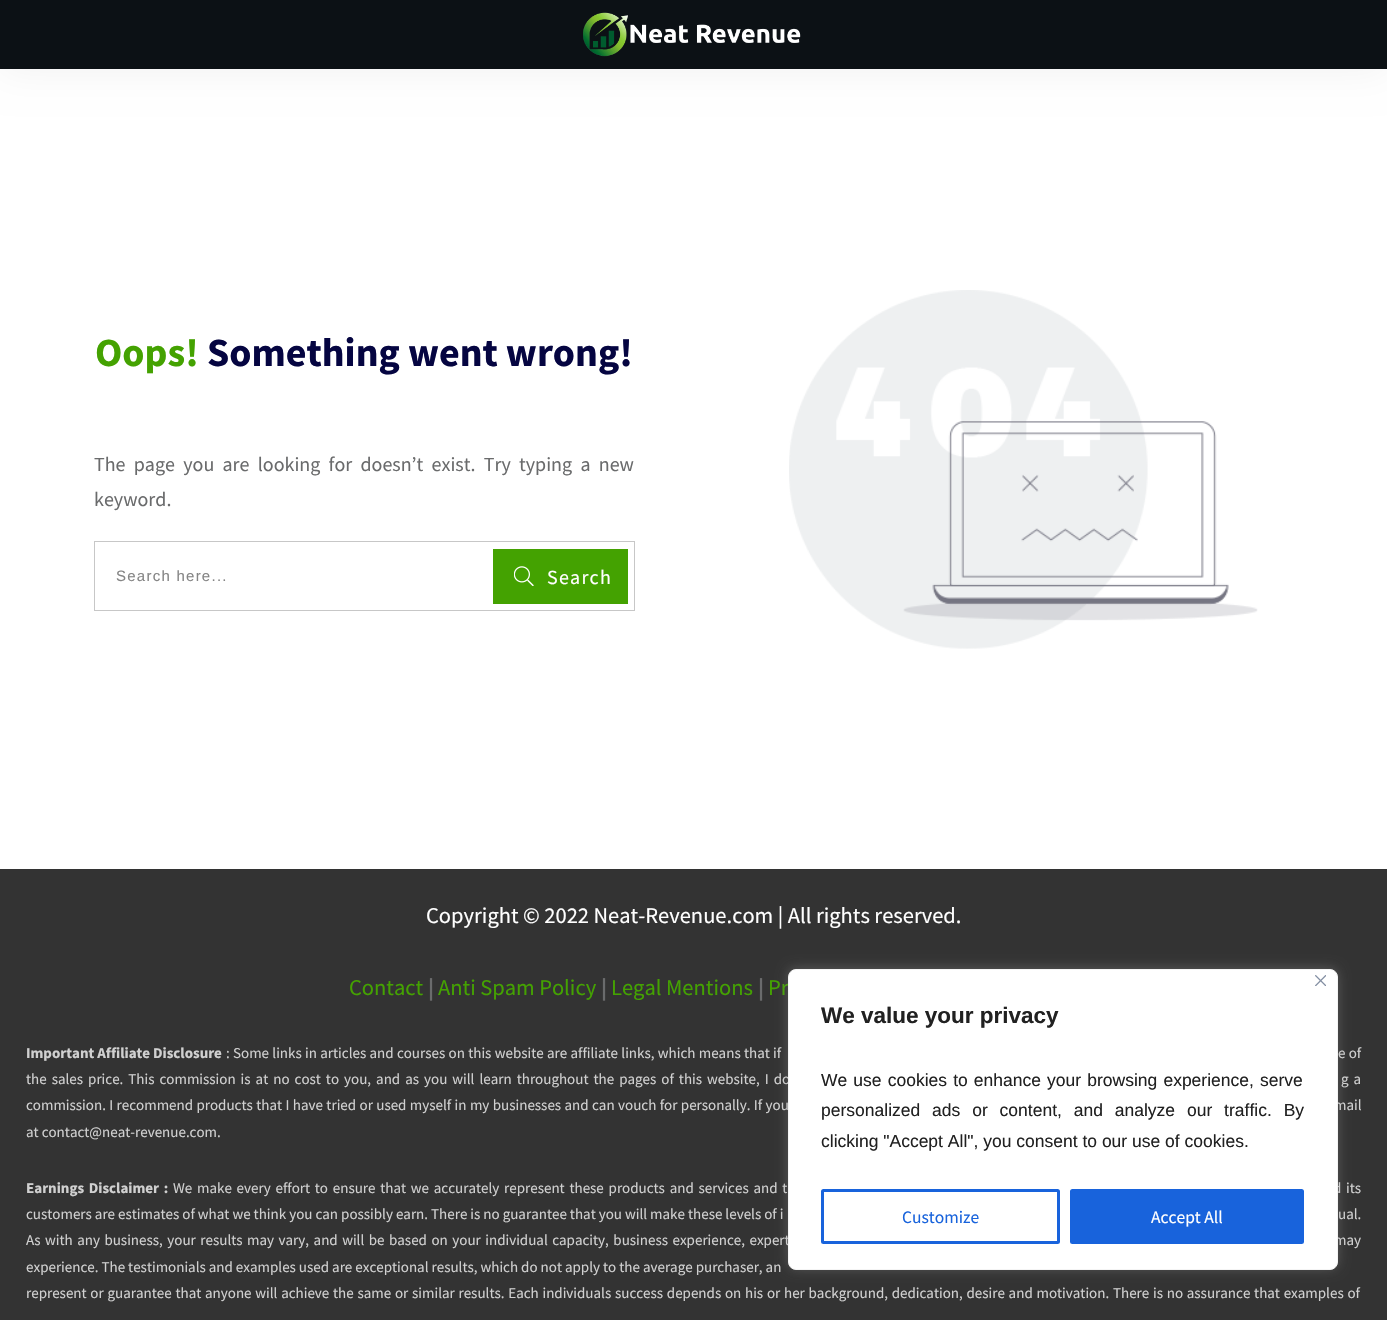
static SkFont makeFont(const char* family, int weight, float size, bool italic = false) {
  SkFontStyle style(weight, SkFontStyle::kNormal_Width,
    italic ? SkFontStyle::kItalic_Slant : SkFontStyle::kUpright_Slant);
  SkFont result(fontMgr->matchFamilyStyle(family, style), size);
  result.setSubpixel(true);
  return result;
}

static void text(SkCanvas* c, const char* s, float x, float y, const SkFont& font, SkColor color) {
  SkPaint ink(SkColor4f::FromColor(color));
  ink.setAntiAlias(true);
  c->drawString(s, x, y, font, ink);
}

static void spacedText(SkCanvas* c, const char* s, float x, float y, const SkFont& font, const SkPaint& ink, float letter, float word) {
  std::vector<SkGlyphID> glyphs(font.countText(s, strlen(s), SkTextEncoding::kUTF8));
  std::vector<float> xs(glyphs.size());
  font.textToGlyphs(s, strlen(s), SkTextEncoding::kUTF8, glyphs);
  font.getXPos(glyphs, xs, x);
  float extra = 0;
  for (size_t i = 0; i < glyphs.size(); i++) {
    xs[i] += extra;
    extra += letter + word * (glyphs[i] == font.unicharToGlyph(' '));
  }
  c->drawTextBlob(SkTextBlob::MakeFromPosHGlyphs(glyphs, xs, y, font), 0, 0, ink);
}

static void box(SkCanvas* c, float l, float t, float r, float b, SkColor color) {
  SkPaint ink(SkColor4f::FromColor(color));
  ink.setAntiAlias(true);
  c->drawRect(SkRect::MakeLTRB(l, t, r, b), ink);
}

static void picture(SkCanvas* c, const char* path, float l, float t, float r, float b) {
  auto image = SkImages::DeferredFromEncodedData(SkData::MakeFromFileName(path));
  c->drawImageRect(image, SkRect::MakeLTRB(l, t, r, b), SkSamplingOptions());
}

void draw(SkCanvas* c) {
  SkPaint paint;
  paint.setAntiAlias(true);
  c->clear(0xffffffff);
  paint.setColor(0x0d000000);
  paint.setMaskFilter(SkMaskFilter::MakeBlur(kNormal_SkBlurStyle, 19));
  c->drawRect(SkRect::MakeLTRB(0, 3, 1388, 71), paint);
  paint.setMaskFilter(nullptr);
  box(c, 0, 0, 1387, 69, 0xff0c1115);
  picture(c, "img_01.png", 583, 12, 801, 57);
  SkFont face1 = makeFont("Source Sans Pro", 700, 40);
  text(c, "Oops!", 95, 366, face1, 0xff44a201);
  text(c, "Something went wrong!", 207, 366, face1, 0xff050541);
  SkFont face2 = makeFont("Source Sans Pro", 400, 20);
  paint.setColor(0xff6a6b6c);
  spacedText(c, "The page you are looking for doesn’t exist. Try typing a new", 94, 471, face2, paint, 0, 4.25f);
  text(c, "keyword.", 94, 506, face2, 0xff6a6b6c);
  paint.setStyle(SkPaint::kStroke_Style);
  paint.setStrokeWidth(1);
  paint.setColor(0xffc7c7c7);
  c->drawRect(SkRect::MakeLTRB(94.5f, 541.5f, 634.5f, 610.5f), paint);
  SkFont face3 = makeFont("Liberation Sans", 400, 15);
  paint.setStyle(SkPaint::kFill_Style);
  paint.setColor(0xff858585);
  spacedText(c, "Search here...", 116, 581, face3, paint, 1.25f, 0);
  box(c, 493, 549, 628, 604, 0xff44a201);
  picture(c, "img_02.png", 514, 566, 534, 586);
  paint.setColor(0xffffffff);
  spacedText(c, "Search", 547, 584, face2, paint, 1.25f, 0);
  picture(c, "img_03.png", 789, 290, 1258, 649);
  box(c, 0, 869, 1387, 1320, 0xff333333);
  SkFont face4 = makeFont("Source Sans Pro", 400, 22.5f);
  text(c, "Copyright © 2022 Neat-Revenue.com | All rights reserved.", 426, 923, face4, 0xffffffff);
  text(c, "Contact", 349, 995, face4, 0xff44a201);
  SkFont face5 = makeFont("Source Sans Pro", 700, 22.5f);
  text(c, "|", 428, 995, face5, 0xff6a6b6c);
  text(c, "Anti Spam Policy", 438, 995, face4, 0xff44a201);
  text(c, "|", 601, 995, face5, 0xff6a6b6c);
  text(c, "Legal Mentions", 611, 995, face4, 0xff44a201);
  text(c, "|", 758, 995, face5, 0xff6a6b6c);
  text(c, "Pr", 768, 995, face4, 0xff44a201);
  SkFont face6 = makeFont("Source Sans Pro", 700, 15);
  text(c, "Important Affiliate Disclosure", 26, 1058, face6, 0xffd0d0d0);
  SkFont face7 = makeFont("Source Sans Pro", 400, 15);
  paint.setColor(0xffd0d0d0);
  spacedText(c, ": Some links in articles and courses on this website are affiliate links, which means that if", 226, 1058, face7, paint, 0, 0.3f);
  spacedText(c, "e of", 1338, 1058, face7, paint, 0, 0.3f);
  spacedText(c, "the sales price. This commission is at no cost to you, and as you will learn throughout the pages of this website, I do", 26, 1084, face7, paint, 0, 2);
  spacedText(c, "g a", 1341, 1084, face7, paint, 0, 2);
  spacedText(c, "commission. I recommend products that I have tried or used myself in my businesses and can vouch for personally. If you", 26, 1110, face7, paint, 0, 0.4f);
  spacedText(c, "mail", 1334, 1110, face7, paint, 0, 0.4f);
  text(c, "at contact@neat-revenue.com.", 26, 1137, face7, 0xffd0d0d0);
  spacedText(c, "Earnings Disclaimer :", 26, 1193, face6, paint, 0, 1.75f);
  spacedText(c, "We make every effort to ensure that we accurately represent these products and services and t", 173, 1193, face7, paint, 0, 1.75f);
  spacedText(c, "d its", 1333, 1193, face7, paint, 0, 1.75f);
  text(c, "customers are estimates of what we think you can possibly earn. There is no guarantee that you will make these levels of i", 26, 1219, face7, 0xffd0d0d0);
  text(c, "ual.", 1338, 1219, face7, 0xffd0d0d0);
  spacedText(c, "As with any business, your results may vary, and will be based on your individual capacity, business experience, expert", 26, 1245, face7, paint, 0, 1.5f);
  spacedText(c, "may", 1334, 1245, face7, paint, 0, 1.5f);
  text(c, "experience. The testimonials and examples used are exceptional results, which do not apply to the average purchaser, an", 26, 1272, face7, 0xffd0d0d0);
  spacedText(c, "represent or guarantee that anyone will achieve the same or similar results. Each individuals success depends on his or her background, dedication, desire and motivation. There is no assurance that examples of", 26, 1298, face7, paint, 0, 0.75f);
  paint.setColor(0x4dacabab);
  paint.setMaskFilter(SkMaskFilter::MakeBlur(kNormal_SkBlurStyle, 6));
  c->drawRoundRect(SkRect::MakeLTRB(788, 968, 1338, 1269), 8, 8, paint);
  paint.setMaskFilter(nullptr);
  paint.setColor(0xffffffff);
  c->drawRoundRect(SkRect::MakeLTRB(788.5f, 969.5f, 1337.5f, 1269.5f), 7.5f, 7.5f, paint);
  paint.setStyle(SkPaint::kStroke_Style);
  paint.setColor(0xfff4f4f4);
  c->drawRoundRect(SkRect::MakeLTRB(788.5f, 969.5f, 1337.5f, 1269.5f), 7.5f, 7.5f, paint);
  picture(c, "img_04.png", 1315, 975, 1326, 986);
  SkFont face8 = makeFont("Liberation Sans", 700, 22.5f);
  text(c, "We value your privacy", 821, 1023, face8, 0xff212121);
  SkFont face9 = makeFont("Liberation Sans", 400, 17.5f);
  paint.setStyle(SkPaint::kFill_Style);
  paint.setColor(0xff212121);
  spacedText(c, "We use cookies to enhance your browsing experience, serve", 821, 1086, face9, paint, 0, 1.25f);
  spacedText(c, "personalized ads or content, and analyze our traffic. By", 821, 1116, face9, paint, 0, 7);
  text(c, "clicking \"Accept All\", you consent to our use of cookies.", 821, 1147, face9, 0xff212121);
  paint.setStyle(SkPaint::kStroke_Style);
  paint.setStrokeWidth(3);
  paint.setColor(0xff1863dc);
  c->drawRoundRect(SkRect::MakeLTRB(822.5f, 1190.5f, 1058.5f, 1242.5f), 1, 1, paint);
  SkFont face10 = makeFont("Source Sans Pro", 400, 17.5f);
  text(c, "Customize", 902, 1223, face10, 0xff1863dc);
  paint.setStyle(SkPaint::kFill_Style);
  c->drawRoundRect(SkRect::MakeLTRB(1071.5f, 1190.5f, 1302.5f, 1242.5f), 1, 1, paint);
  paint.setStyle(SkPaint::kStroke_Style);
  c->drawRoundRect(SkRect::MakeLTRB(1071.5f, 1190.5f, 1302.5f, 1242.5f), 1, 1, paint);
  text(c, "Accept All", 1151, 1223, face10, 0xffffffff);
}
